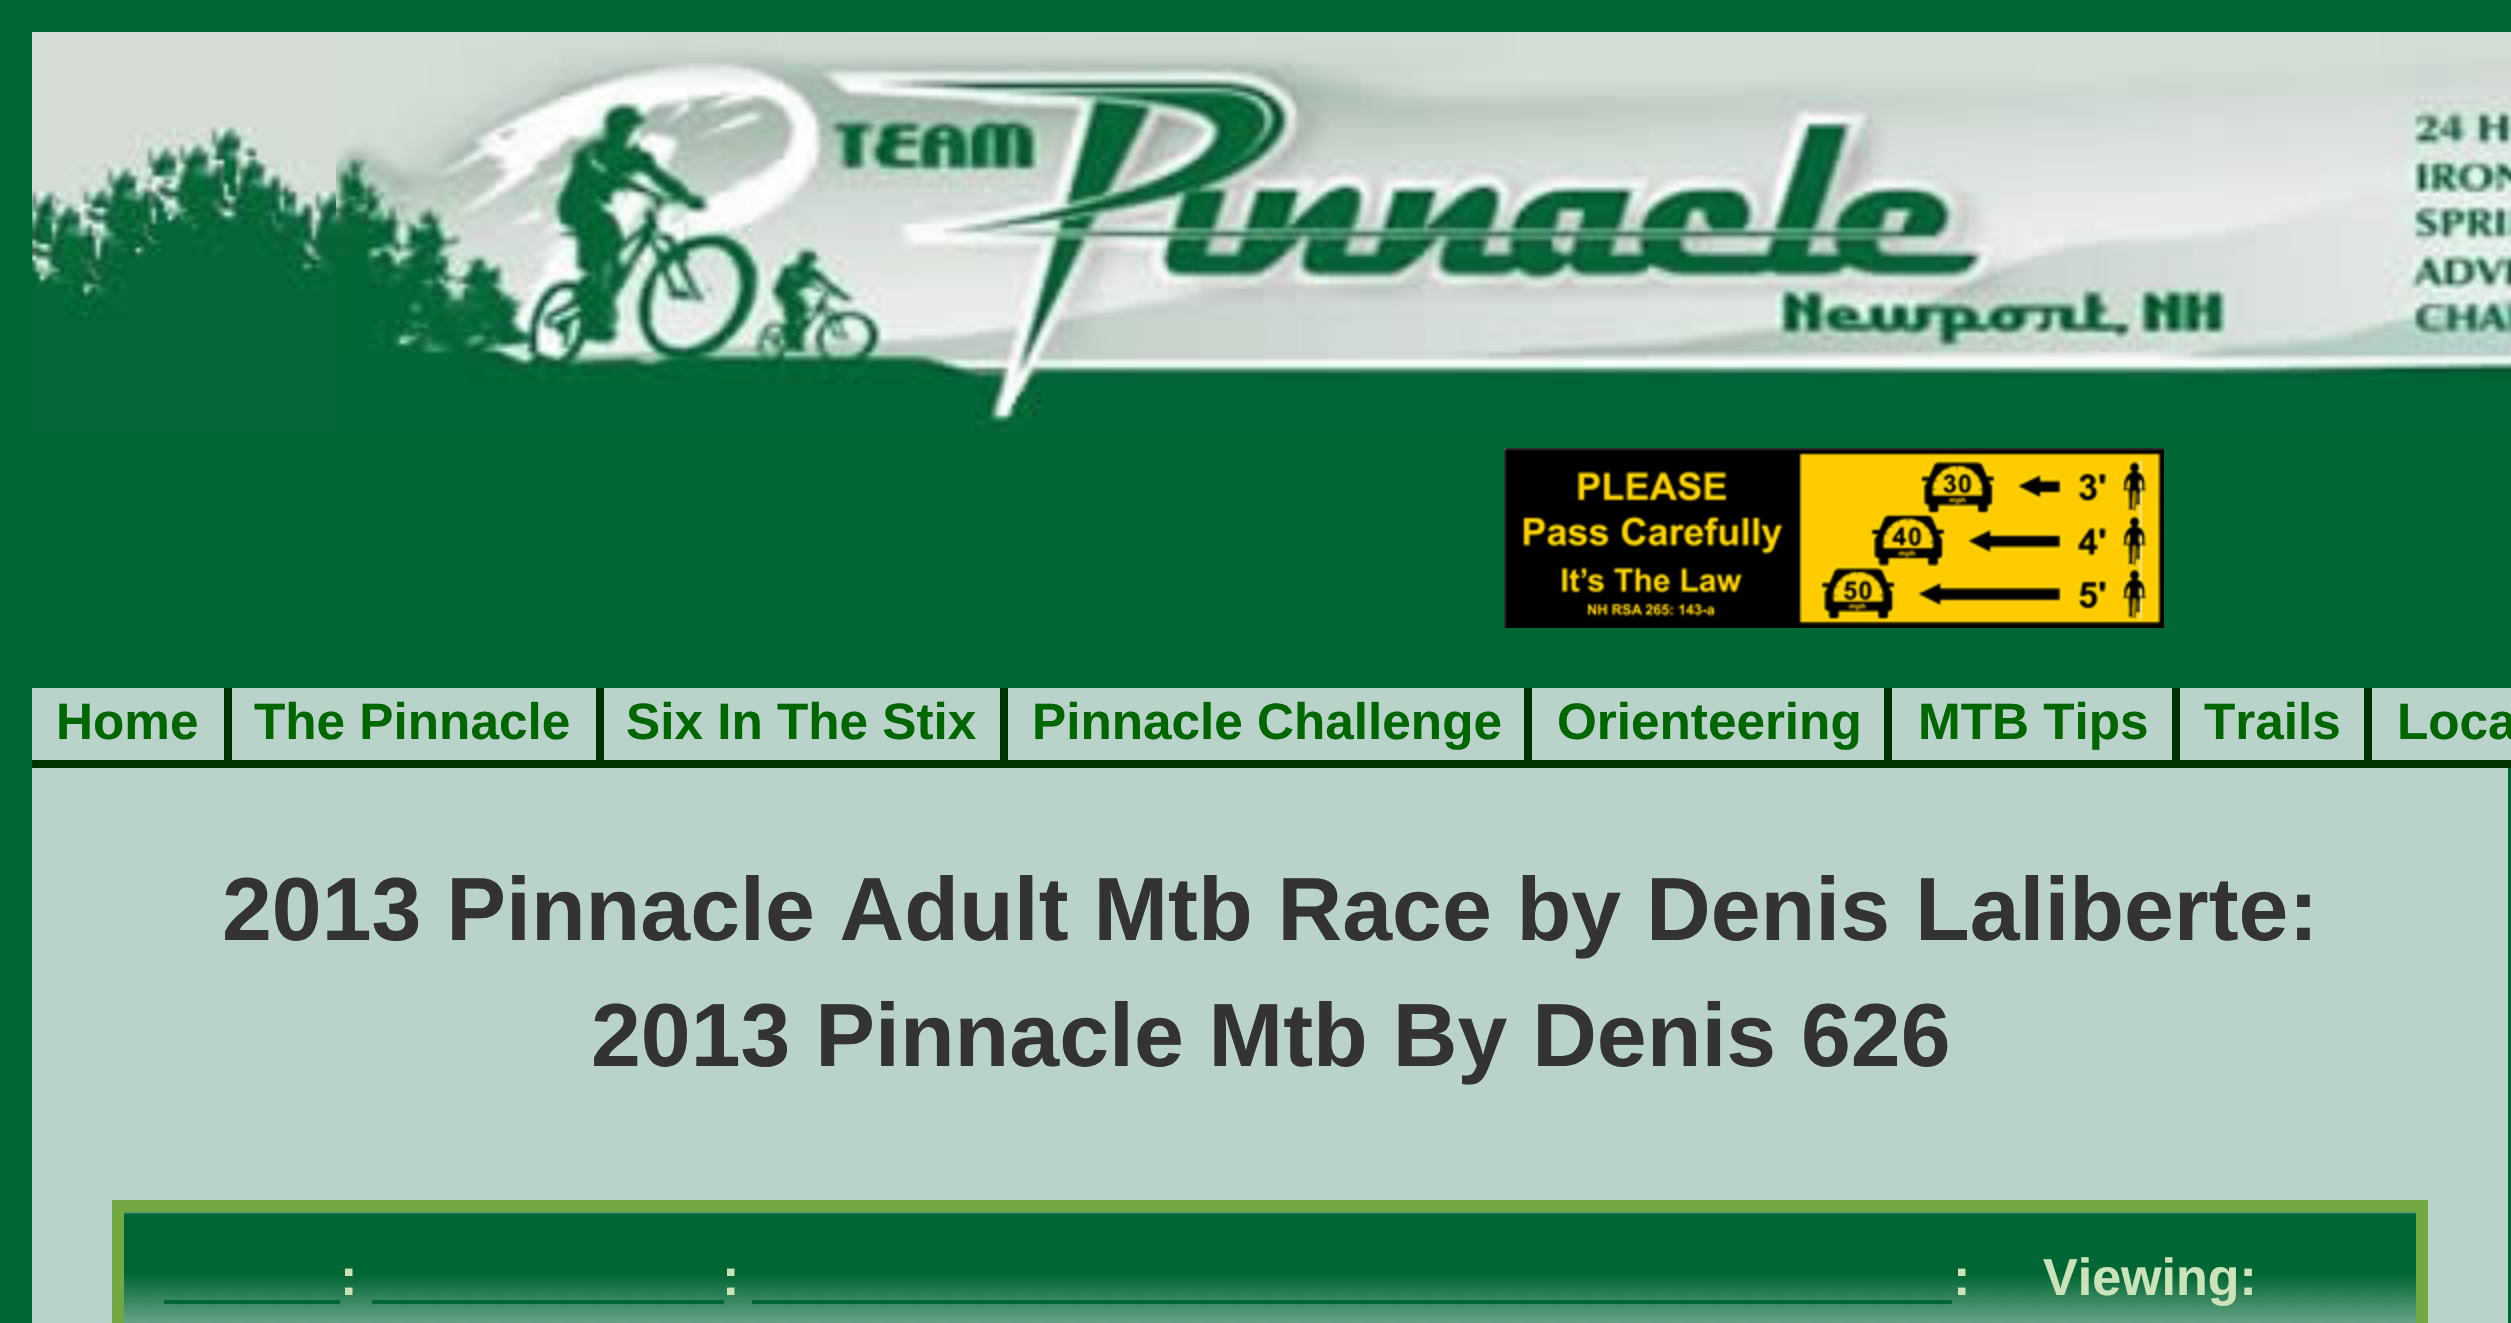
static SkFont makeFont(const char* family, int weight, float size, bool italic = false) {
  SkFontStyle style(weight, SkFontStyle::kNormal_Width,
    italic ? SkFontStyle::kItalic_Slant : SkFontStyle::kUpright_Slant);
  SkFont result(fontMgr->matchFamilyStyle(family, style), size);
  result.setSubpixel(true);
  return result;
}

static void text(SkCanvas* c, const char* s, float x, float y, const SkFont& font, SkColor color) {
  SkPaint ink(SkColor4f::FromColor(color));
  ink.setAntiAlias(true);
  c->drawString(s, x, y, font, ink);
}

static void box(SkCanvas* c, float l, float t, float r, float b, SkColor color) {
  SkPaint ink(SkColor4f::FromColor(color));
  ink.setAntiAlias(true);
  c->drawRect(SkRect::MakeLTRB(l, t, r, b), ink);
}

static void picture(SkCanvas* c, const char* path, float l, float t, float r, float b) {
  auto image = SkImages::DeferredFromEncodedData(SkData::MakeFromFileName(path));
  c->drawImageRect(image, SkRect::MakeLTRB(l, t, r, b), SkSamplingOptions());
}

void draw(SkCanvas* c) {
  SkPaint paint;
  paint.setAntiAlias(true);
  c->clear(0xff006634);
  picture(c, "img_01.png", 32, 32, 336, 432);
  picture(c, "img_02.png", 336, 32, 2511, 432);
  picture(c, "img_03.png", 1504, 448, 2164, 628);
  box(c, 32, 688, 224, 760, 0xffb9d3cb);
  box(c, 224, 688, 232, 768, 0xff003300);
  box(c, 32, 760, 232, 768, 0xff003300);
  SkFont face1 = makeFont("Liberation Sans", 700, 51.25f);
  text(c, "Home", 56, 739, face1, 0xff006600);
  box(c, 232, 688, 596, 760, 0xffb9d3cb);
  box(c, 596, 688, 604, 768, 0xff003300);
  box(c, 232, 760, 604, 768, 0xff003300);
  text(c, "The Pinnacle", 254, 739, face1, 0xff006600);
  box(c, 604, 688, 1000, 760, 0xffb9d3cb);
  box(c, 1000, 688, 1008, 768, 0xff003300);
  box(c, 604, 760, 1008, 768, 0xff003300);
  text(c, "Six In The Stix", 626, 739, face1, 0xff006600);
  box(c, 1008, 688, 1524, 760, 0xffb9d3cb);
  box(c, 1524, 688, 1532, 768, 0xff003300);
  box(c, 1008, 760, 1532, 768, 0xff003300);
  text(c, "Pinnacle Challenge", 1032, 739, face1, 0xff006600);
  box(c, 1532, 688, 1884, 760, 0xffb9d3cb);
  box(c, 1884, 688, 1892, 768, 0xff003300);
  box(c, 1532, 760, 1892, 768, 0xff003300);
  text(c, "Orienteering", 1557, 739, face1, 0xff006600);
  box(c, 1892, 688, 2172, 760, 0xffb9d3cb);
  box(c, 2172, 688, 2180, 768, 0xff003300);
  box(c, 1892, 760, 2180, 768, 0xff003300);
  text(c, "MTB Tips", 1918, 739, face1, 0xff006600);
  box(c, 2180, 688, 2364, 760, 0xffb9d3cb);
  box(c, 2364, 688, 2372, 768, 0xff003300);
  box(c, 2180, 760, 2511, 768, 0xff003300);
  text(c, "Trails", 2204, 739, face1, 0xff006600);
  box(c, 2372, 688, 2511, 760, 0xffb9d3cb);
  text(c, "Loca", 2397, 739, face1, 0xff006600);
  box(c, 32, 768, 2508, 1323, 0xffb9d3cb);
  SkFont face2 = makeFont("Liberation Sans", 700, 89.6f);
  text(c, "2013 Pinnacle Adult Mtb Race by Denis Laliberte:", 222, 940, face2, 0xff333333);
  text(c, "2013 Pinnacle Mtb By Denis 626", 591, 1066, face2, 0xff333333);
  paint.setStyle(SkPaint::kStroke_Style);
  paint.setStrokeWidth(12);
  paint.setColor(0xff72a741);
  c->drawRect(SkRect::MakeLTRB(118, 1206, 2422, 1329), paint);
  picture(c, "img_04.png", 124, 1212, 2416, 1323);
  SkFont face3 = makeFont("Liberation Sans", 700, 52);
  text(c, ":", 340, 1295, face3, 0xffcce2b8);
  box(c, 164, 1300, 340, 1304, 0xff006633);
  text(c, ":", 722, 1295, face3, 0xffcce2b8);
  box(c, 372, 1300, 724, 1304, 0xff006633);
  text(c, ":", 1953, 1295, face3, 0xffcce2b8);
  box(c, 752, 1300, 1952, 1304, 0xff006633);
  text(c, "Viewing:", 2043, 1295, face3, 0xffcce2b8);
}
